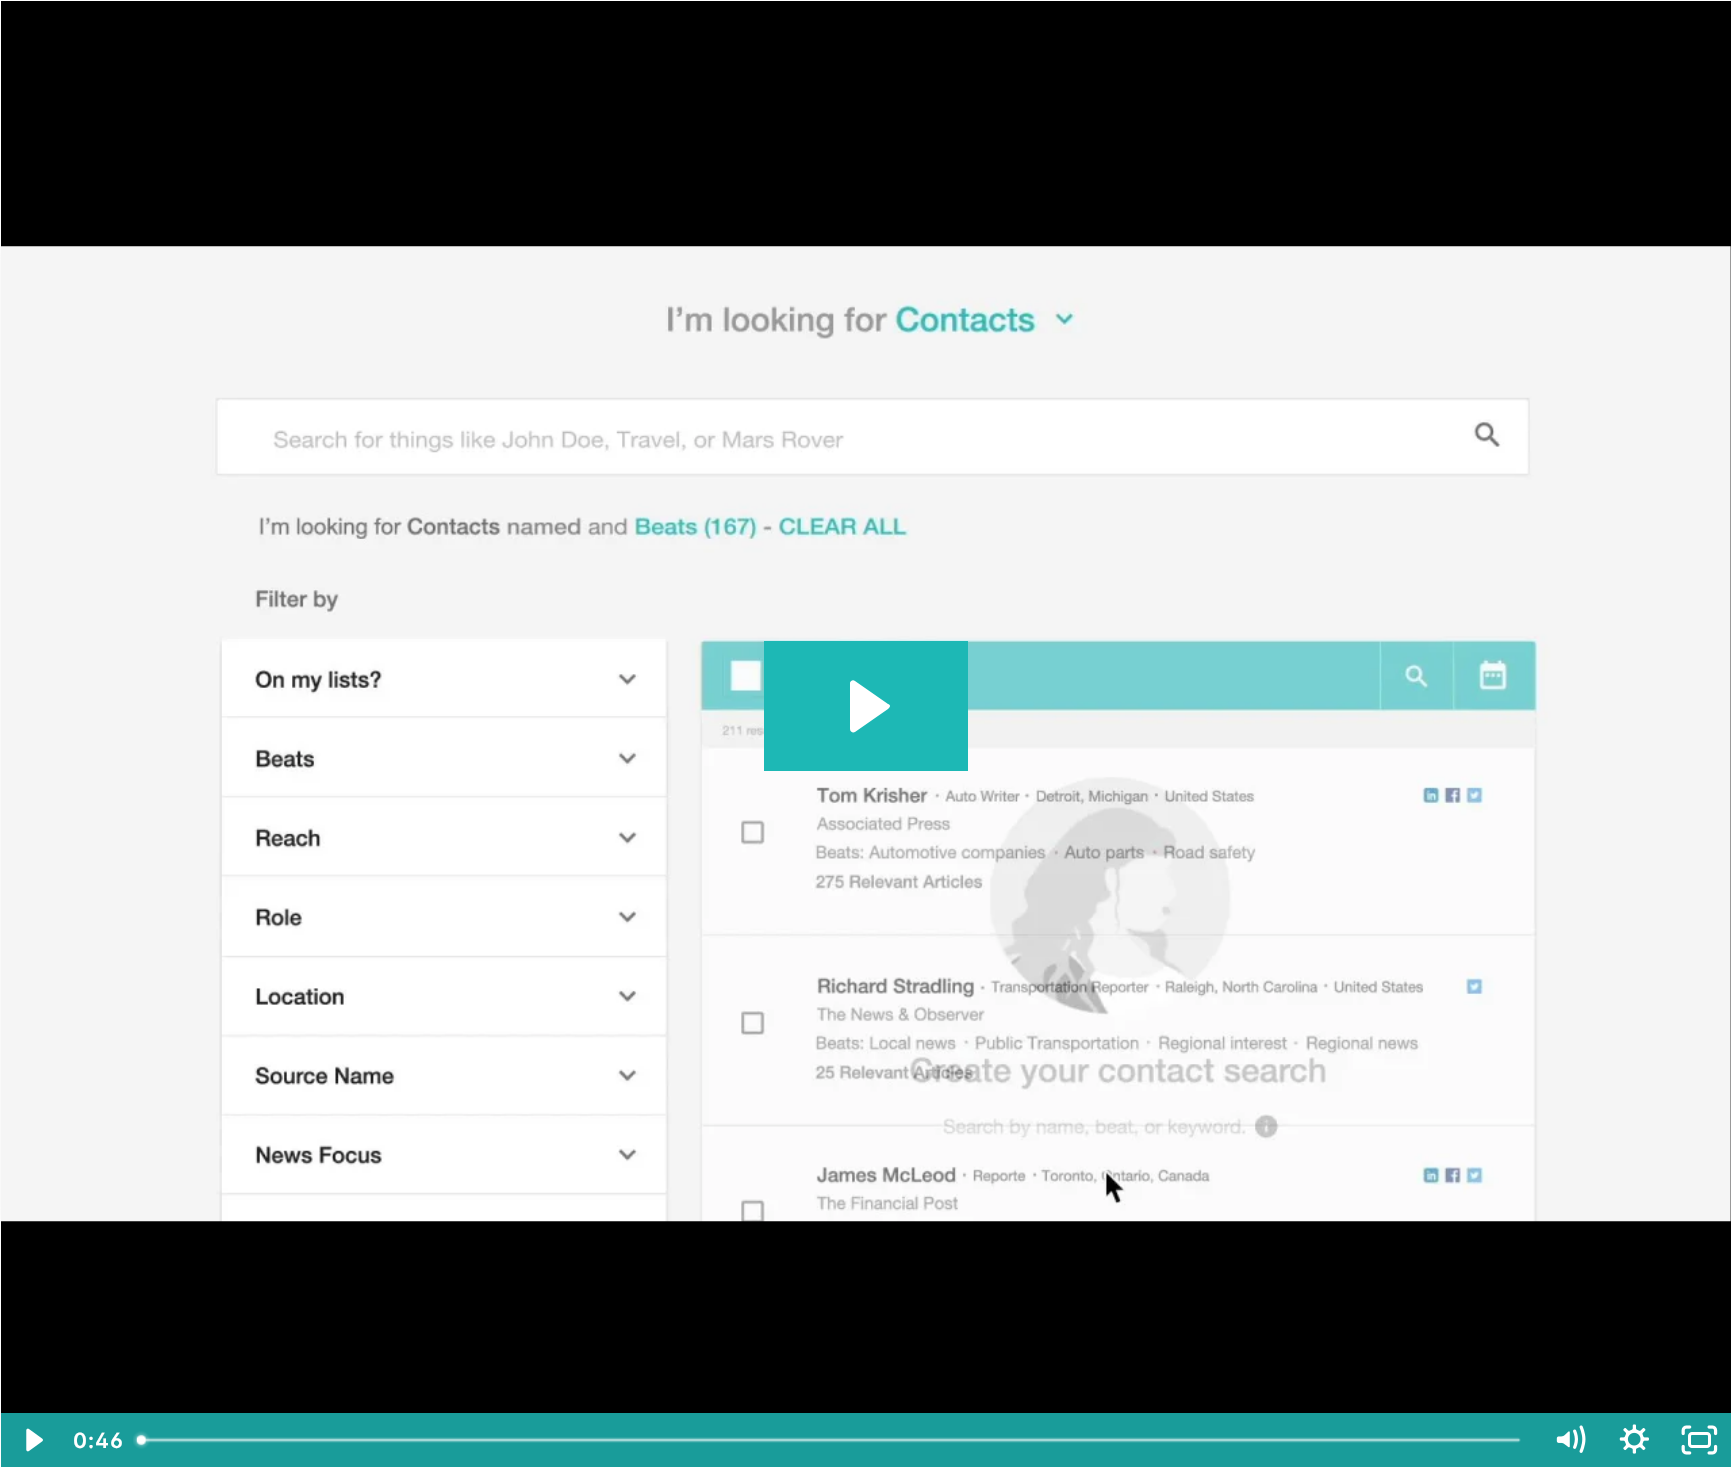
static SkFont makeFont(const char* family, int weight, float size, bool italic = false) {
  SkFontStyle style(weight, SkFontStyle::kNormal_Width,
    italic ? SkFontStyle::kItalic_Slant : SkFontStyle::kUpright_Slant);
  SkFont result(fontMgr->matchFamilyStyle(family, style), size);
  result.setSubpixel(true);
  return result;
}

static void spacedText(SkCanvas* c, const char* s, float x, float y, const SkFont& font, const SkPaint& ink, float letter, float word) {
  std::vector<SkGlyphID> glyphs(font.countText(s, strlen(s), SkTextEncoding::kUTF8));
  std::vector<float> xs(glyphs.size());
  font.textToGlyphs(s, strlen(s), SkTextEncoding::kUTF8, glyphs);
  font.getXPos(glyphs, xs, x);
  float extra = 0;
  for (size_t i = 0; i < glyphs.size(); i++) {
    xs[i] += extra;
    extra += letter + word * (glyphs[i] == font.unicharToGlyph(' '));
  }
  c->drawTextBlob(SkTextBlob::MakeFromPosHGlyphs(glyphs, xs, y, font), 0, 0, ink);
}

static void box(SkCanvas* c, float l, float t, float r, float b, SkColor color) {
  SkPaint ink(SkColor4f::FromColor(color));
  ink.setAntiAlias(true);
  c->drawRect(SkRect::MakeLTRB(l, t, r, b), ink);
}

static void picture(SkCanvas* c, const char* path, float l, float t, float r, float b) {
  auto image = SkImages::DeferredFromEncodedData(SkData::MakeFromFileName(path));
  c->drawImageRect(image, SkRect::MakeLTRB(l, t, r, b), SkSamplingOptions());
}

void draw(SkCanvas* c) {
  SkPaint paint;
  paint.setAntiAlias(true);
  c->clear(0xffffffff);
  picture(c, "img_01.png", 0, 244, 1, 1223);
  box(c, 1, 1, 1731, 1413, 0xff000000);
  picture(c, "img_02.png", 1, 246, 1731, 1222);
  box(c, 764, 641, 968, 771, 0xff1db8b5);
  paint.setColor(0xffffffff);
  c->drawPath(SkPathBuilder(SkPathFillType::kEvenOdd).moveTo(855, 681).cubicTo(853, 679, 850, 681, 850, 683).lineTo(850, 729).cubicTo(850, 732, 853, 733, 855, 732).lineTo(888, 709).cubicTo(889, 708, 890, 707, 890, 706).cubicTo(890, 705, 889, 704, 888, 704).close().detach(), paint);
  box(c, 1, 1413, 1731, 1467, 0xff199c9a);
  picture(c, "img_03.png", 26, 1428, 43, 1452);
  SkFont face1 = makeFont("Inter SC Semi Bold", 600, 21);
  spacedText(c, "0:46", 73, 1448, face1, paint, 1, 0);
  picture(c, "img_04.png", 133, 1431, 1521, 1449);
  picture(c, "img_05.png", 1556, 1425, 1586, 1453);
  picture(c, "img_06.png", 1619, 1424, 1649, 1454);
  picture(c, "img_07.png", 1681, 1425, 1718, 1455);
}
